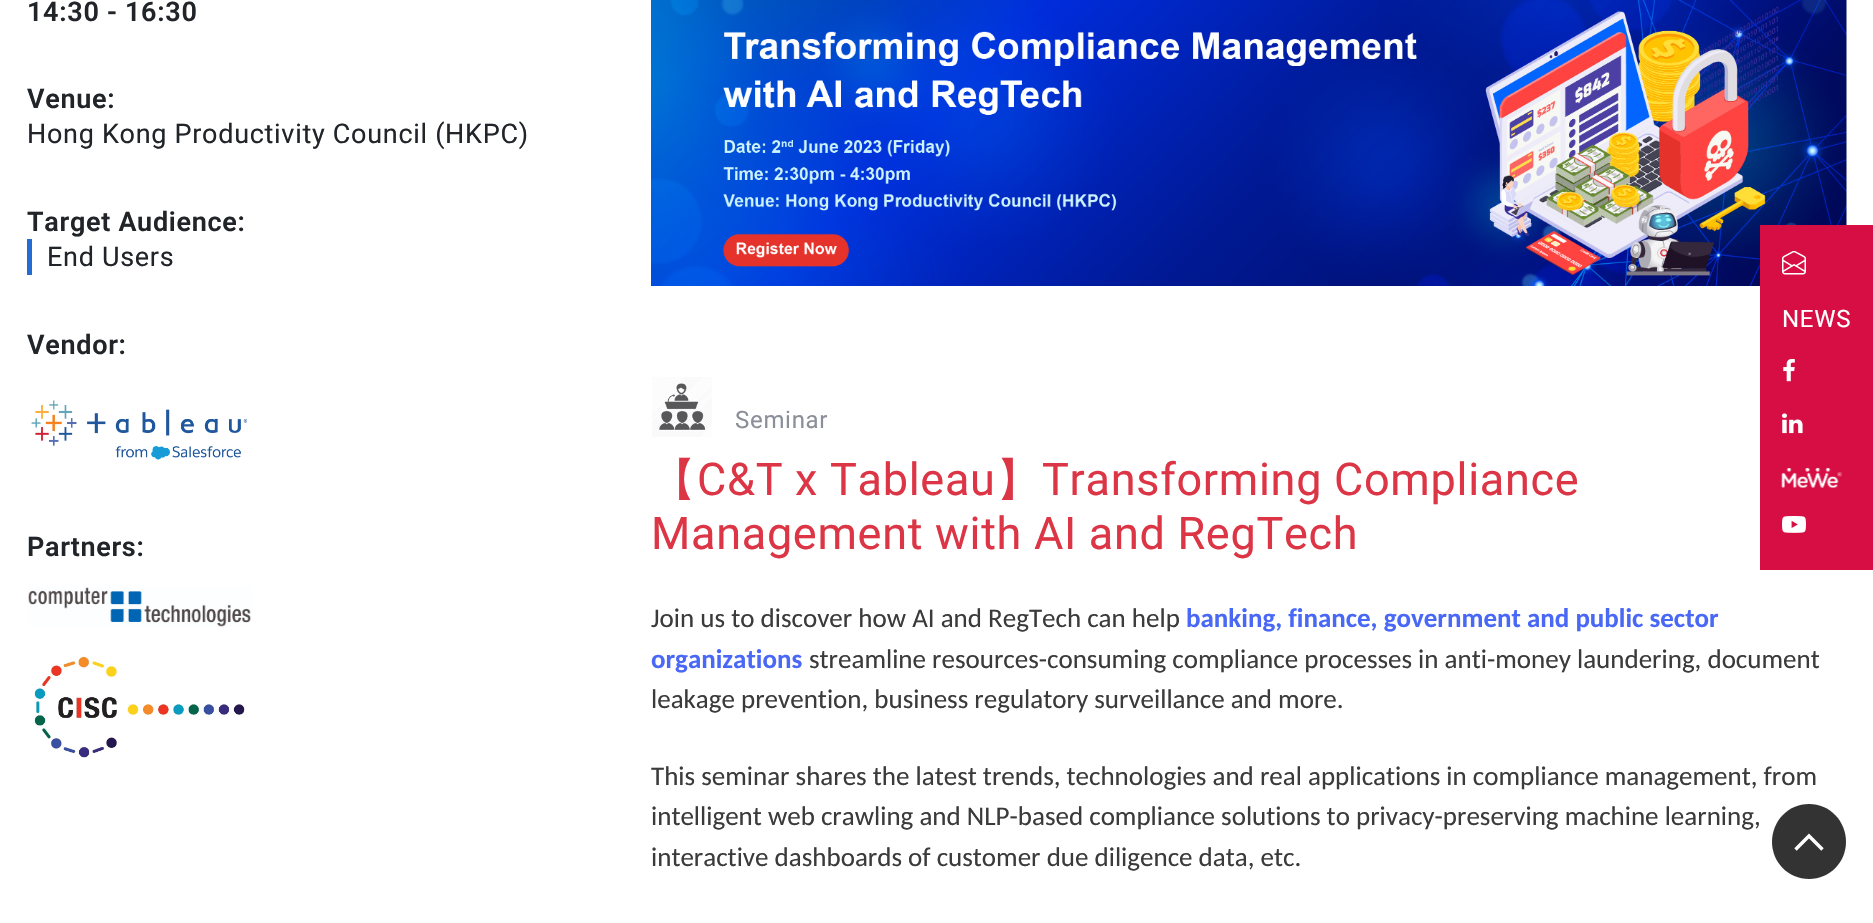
static SkFont makeFont(const char* family, int weight, float size, bool italic = false) {
  SkFontStyle style(weight, SkFontStyle::kNormal_Width,
    italic ? SkFontStyle::kItalic_Slant : SkFontStyle::kUpright_Slant);
  SkFont result(fontMgr->matchFamilyStyle(family, style), size);
  result.setSubpixel(true);
  return result;
}

static void text(SkCanvas* c, const char* s, float x, float y, const SkFont& font, SkColor color) {
  SkPaint ink(SkColor4f::FromColor(color));
  ink.setAntiAlias(true);
  c->drawString(s, x, y, font, ink);
}

static void spacedText(SkCanvas* c, const char* s, float x, float y, const SkFont& font, const SkPaint& ink, float letter, float word) {
  std::vector<SkGlyphID> glyphs(font.countText(s, strlen(s), SkTextEncoding::kUTF8));
  std::vector<float> xs(glyphs.size());
  font.textToGlyphs(s, strlen(s), SkTextEncoding::kUTF8, glyphs);
  font.getXPos(glyphs, xs, x);
  float extra = 0;
  for (size_t i = 0; i < glyphs.size(); i++) {
    xs[i] += extra;
    extra += letter + word * (glyphs[i] == font.unicharToGlyph(' '));
  }
  c->drawTextBlob(SkTextBlob::MakeFromPosHGlyphs(glyphs, xs, y, font), 0, 0, ink);
}

static void box(SkCanvas* c, float l, float t, float r, float b, SkColor color) {
  SkPaint ink(SkColor4f::FromColor(color));
  ink.setAntiAlias(true);
  c->drawRect(SkRect::MakeLTRB(l, t, r, b), ink);
}

static void picture(SkCanvas* c, const char* path, float l, float t, float r, float b) {
  auto image = SkImages::DeferredFromEncodedData(SkData::MakeFromFileName(path));
  c->drawImageRect(image, SkRect::MakeLTRB(l, t, r, b), SkSamplingOptions());
}

void draw(SkCanvas* c) {
  SkPaint paint;
  paint.setAntiAlias(true);
  c->clear(0xffffffff);
  SkFont face1 = makeFont("Roboto", 600, 27);
  paint.setColor(0xff212529);
  spacedText(c, "14:30 - 16:30", 27, 21, face1, paint, 0.7f, 0);
  spacedText(c, "Venue:", 27, 108, face1, paint, 0.7f, 0);
  SkFont face2 = makeFont("Roboto", 400, 27);
  spacedText(c, "Hong Kong Productivity Council (HKPC)", 27, 143, face2, paint, 0.7f, 0);
  spacedText(c, "Target Audience:", 27, 231, face1, paint, 0.7f, 0);
  box(c, 27, 239, 32, 275, 0xff256cd2);
  spacedText(c, "End Users", 47, 266, face2, paint, 0.7f, 0);
  spacedText(c, "Vendor:", 27, 354, face1, paint, 0.7f, 0);
  picture(c, "img_01.png", 31, 400, 248, 460);
  spacedText(c, "Partners:", 27, 556, face1, paint, 0.7f, 0);
  picture(c, "img_02.png", 28, 587, 252, 627);
  picture(c, "img_03.png", 34, 656, 245, 758);
  picture(c, "img_04.png", 651, 0, 1847, 286);
  picture(c, "img_05.png", 652, 377, 712, 437);
  SkFont face3 = makeFont("Roboto", 400, 24);
  paint.setColor(0xff8b8f99);
  spacedText(c, "Seminar", 735, 428, face3, paint, 0.7f, 0);
  SkFont face4 = makeFont("WenQuanYi Zen Hei", 500, 45);
  paint.setColor(0xffdc3545);
  spacedText(c, "【", 651, 495, face4, paint, 0.7f, 0);
  SkFont face5 = makeFont("Roboto", 400, 45);
  spacedText(c, "C&T x Tableau", 697, 495, face5, paint, 0.7f, 0);
  spacedText(c, "】", 996, 495, face4, paint, 0.7f, 0);
  spacedText(c, "Transforming Compliance", 1042, 495, face5, paint, 0.7f, 0);
  spacedText(c, "Management with AI and RegTech", 651, 549, face5, paint, 0.7f, 0);
  SkFont face6 = makeFont("Carlito", 400, 27);
  text(c, "Join us to discover how AI and RegTech can help", 651, 627, face6, 0xff3b3b3b);
  SkFont face7 = makeFont("Carlito", 700, 27);
  text(c, "banking, finance, government and public sector", 1186, 627, face7, 0xff4968f6);
  text(c, "organizations", 651, 668, face7, 0xff4968f6);
  text(c, "streamline resources-consuming compliance processes in anti-money laundering, document", 809, 668, face6, 0xff3b3b3b);
  text(c, "leakage prevention, business regulatory surveillance and more.", 651, 708, face6, 0xff3b3b3b);
  text(c, "This seminar shares the latest trends, technologies and real applications in compliance management, from", 651, 785, face6, 0xff3b3b3b);
  text(c, "intelligent web crawling and NLP-based compliance solutions to privacy-preserving machine learning,", 651, 825, face6, 0xff3b3b3b);
  text(c, "interactive dashboards of customer due diligence data, etc.", 651, 866, face6, 0xff3b3b3b);
  box(c, 1760, 225, 1873, 570, 0xffd60e43);
  picture(c, "img_06.png", 1782, 251, 1806, 275);
  paint.setColor(0xffffffff);
  spacedText(c, "NEWS", 1782, 327, face3, paint, 0.7f, 0);
  picture(c, "img_07.png", 1783, 358, 1795, 382);
  picture(c, "img_08.png", 1782, 413, 1803, 434);
  picture(c, "img_09.png", 1781, 468, 1842, 488);
  picture(c, "img_10.png", 1782, 516, 1806, 533);
  paint.setColor(0xff333333);
  c->drawPath(SkPathBuilder().moveTo(1809, 879).cubicTo(1788, 879, 1772, 862, 1772, 842).cubicTo(1772, 821, 1788, 804, 1809, 804).cubicTo(1830, 804, 1846, 821, 1846, 842).cubicTo(1846, 862, 1830, 879, 1809, 879).close().detach(), paint);
  paint.setStyle(SkPaint::kStroke_Style);
  paint.setStrokeWidth(3.4f);
  paint.setColor(0xffffffff);
  c->drawPath(SkPathBuilder().moveTo(1795.5f, 849.5f).lineTo(1809, 836).lineTo(1822.5f, 849.5f).detach(), paint);
}
